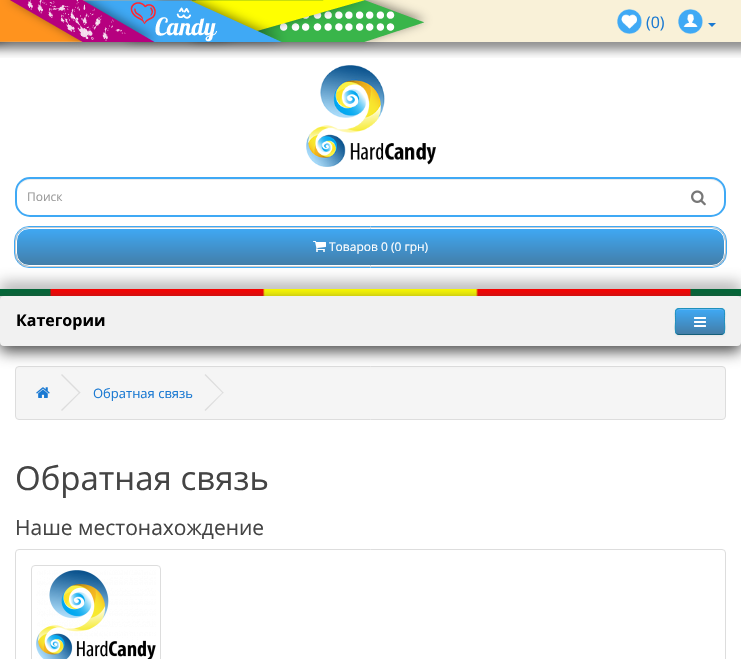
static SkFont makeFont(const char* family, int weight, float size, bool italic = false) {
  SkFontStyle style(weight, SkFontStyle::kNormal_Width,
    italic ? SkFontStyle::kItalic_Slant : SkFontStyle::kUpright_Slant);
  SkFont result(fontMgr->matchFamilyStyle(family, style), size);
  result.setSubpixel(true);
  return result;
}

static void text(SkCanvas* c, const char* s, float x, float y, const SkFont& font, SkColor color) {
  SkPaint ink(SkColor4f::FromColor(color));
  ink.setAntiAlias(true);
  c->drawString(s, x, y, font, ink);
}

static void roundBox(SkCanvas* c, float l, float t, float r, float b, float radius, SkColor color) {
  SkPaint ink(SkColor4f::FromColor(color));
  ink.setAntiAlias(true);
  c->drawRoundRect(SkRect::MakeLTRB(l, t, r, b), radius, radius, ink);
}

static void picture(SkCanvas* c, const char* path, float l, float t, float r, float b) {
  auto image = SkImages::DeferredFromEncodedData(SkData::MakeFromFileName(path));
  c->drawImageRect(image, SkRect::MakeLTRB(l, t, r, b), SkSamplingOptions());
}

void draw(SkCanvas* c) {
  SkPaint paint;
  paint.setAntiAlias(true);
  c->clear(0xffffffff);
  picture(c, "img_01.png", 0, 0, 741, 58);
  picture(c, "img_02.png", 617, 9, 642, 34);
  SkFont face1 = makeFont("Open Sans", 400, 16);
  text(c, "(0)", 646, 28, face1, 0xff1a79d2);
  picture(c, "img_03.png", 678, 9, 703, 34);
  paint.setColor(0xff1a79d2);
  c->drawPath(SkPathBuilder().moveTo(708, 23).lineTo(716, 23).lineTo(712, 27).close().detach(), paint);
  picture(c, "img_04.png", 306, 65, 436, 167);
  paint.setColor(0xffececec);
  c->drawPath(SkPathBuilder().moveTo(30, 180).lineTo(711, 180).cubicTo(718, 180, 724, 186, 724, 193).cubicTo(724, 186, 719, 179, 711, 179).lineTo(30, 179).cubicTo(22, 179, 17, 186, 17, 193).cubicTo(17, 186, 23, 180, 30, 180).close().detach(), paint);
  paint.setStyle(SkPaint::kStroke_Style);
  paint.setStrokeWidth(2);
  paint.setColor(0xff3fa9f5);
  c->drawRoundRect(SkRect::MakeLTRB(16, 178, 725, 216), 14, 14, paint);
  SkFont face2 = makeFont("Open Sans", 400, 12);
  text(c, "Поиск", 27, 201, face2, 0xff999999);
  picture(c, "img_05.png", 691, 190, 706, 206);
  paint.setStyle(SkPaint::kFill_Style);
  paint.setColor(0xff737373);
  paint.setMaskFilter(SkMaskFilter::MakeBlur(kNormal_SkBlurStyle, 7.5f));
  c->drawRect(SkRect::MakeLTRB(0, 285, 741, 292), paint);
  paint.setMaskFilter(nullptr);
  paint.setStyle(SkPaint::kStroke_Style);
  paint.setStrokeWidth(1);
  paint.setColor(0xff3fa9f5);
  c->drawRoundRect(SkRect::MakeLTRB(14.5f, 226.5f, 726.5f, 267.5f), 14.5f, 14.5f, paint);
  c->save();
  c->clipPath(SkPathBuilder().moveTo(29, 227).lineTo(712, 227).cubicTo(719.5f, 227, 726, 233.5f, 726, 241).lineTo(726, 253).cubicTo(726, 260.5f, 719.5f, 267, 712, 267).lineTo(29, 267).cubicTo(21.5f, 267, 15, 260.5f, 15, 253).lineTo(15, 241).cubicTo(15, 233.5f, 21.5f, 227, 29, 227).close().detach(), true);
  paint.setStyle(SkPaint::kFill_Style);
  {
    const SkColor colors[] = {0xff3fa9f5, 0xff437da7};
    const float stops[] = {0, 1};
    const SkPoint ends[] = {{371, 228}, {371, 266}};
    paint.setShader(SkGradientShader::MakeLinear(ends, colors, stops, 2, SkTileMode::kClamp));
    paint.setAlpha(255);
  }
  c->drawRect(SkRect::MakeLTRB(15, 228, 726, 266), paint);
  c->restore();
  paint.setStyle(SkPaint::kStroke_Style);
  paint.setShader(nullptr);
  paint.setColor(0xffffffff);
  c->drawRoundRect(SkRect::MakeLTRB(16.5f, 228.5f, 724.5f, 265.5f), 12.5f, 12.5f, paint);
  paint.setColor(0xffcccccc);
  c->drawRoundRect(SkRect::MakeLTRB(15.5f, 227.5f, 725.5f, 266.5f), 13.5f, 13.5f, paint);
  picture(c, "img_06.png", 313, 241, 326, 252);
  text(c, "Товаров 0 (0 грн)", 329, 251, face2, 0xffffffff);
  picture(c, "img_07.png", 0, 289, 741, 296);
  paint.setStyle(SkPaint::kFill_Style);
  paint.setColor(0xfff5f5f5);
  c->drawRoundRect(SkRect::MakeLTRB(15.5f, 366.5f, 725.5f, 419.5f), 3.5f, 3.5f, paint);
  paint.setStyle(SkPaint::kStroke_Style);
  paint.setColor(0xffdddddd);
  c->drawRoundRect(SkRect::MakeLTRB(15.5f, 366.5f, 725.5f, 419.5f), 3.5f, 3.5f, paint);
  paint.setStyle(SkPaint::kFill_Style);
  paint.setColor(0xff424242);
  paint.setMaskFilter(SkMaskFilter::MakeBlur(kNormal_SkBlurStyle, 7.5f));
  c->drawRoundRect(SkRect::MakeLTRB(0, 301, 741, 351), 4, 4, paint);
  paint.setMaskFilter(nullptr);
  roundBox(c, 0, 296, 741, 346, 4, 0xfff1f1f1);
  SkFont face3 = makeFont("Open Sans", 700, 16);
  text(c, "Категории", 16, 326, face3, 0xff000000);
  paint.setColor(0x0d000000);
  paint.setMaskFilter(SkMaskFilter::MakeBlur(kNormal_SkBlurStyle, 1));
  c->drawRoundRect(SkRect::MakeLTRB(675, 309, 725, 336), 4, 4, paint);
  paint.setMaskFilter(nullptr);
  roundBox(c, 675, 308, 725, 335, 4, 0xff229ac8);
  c->save();
  c->clipPath(SkPathBuilder().moveTo(679, 308).lineTo(721, 308).cubicTo(723, 308, 725, 310, 725, 312).lineTo(725, 331).cubicTo(725, 333, 723, 335, 721, 335).lineTo(679, 335).cubicTo(677, 335, 675, 333, 675, 331).lineTo(675, 312).cubicTo(675, 310, 677, 308, 679, 308).close().detach(), true);
  {
    const SkColor colors[] = {0xff3fa9f5, 0xff437da7};
    const float stops[] = {0, 1};
    const SkPoint ends[] = {{700, 309}, {700, 334}};
    paint.setShader(SkGradientShader::MakeLinear(ends, colors, stops, 2, SkTileMode::kClamp));
    paint.setAlpha(255);
  }
  c->drawRect(SkRect::MakeLTRB(675, 309, 725, 334), paint);
  c->restore();
  paint.setShader(nullptr);
  paint.setColor(0xff65b9f5);
  c->drawPath(SkPathBuilder().moveTo(679, 310).lineTo(721, 310).cubicTo(723, 310, 724, 311, 724, 313).cubicTo(724, 307, 718, 309, 714, 309).lineTo(686, 309).cubicTo(682, 309, 676, 307, 676, 313).cubicTo(676, 311, 677, 310, 679, 310).close().detach(), paint);
  paint.setStyle(SkPaint::kStroke_Style);
  paint.setColor(0xff145e7a);
  c->drawPath(SkPathBuilder().moveTo(723.5f, 333.5f).cubicTo(723, 334, 722, 334.5f, 721, 334.5f).lineTo(679, 334.5f).cubicTo(678, 334.5f, 677, 334, 676.5f, 333.5f).detach(), paint);
  paint.setColor(0xff1f90bb);
  c->drawPath(SkPathBuilder().moveTo(676.5f, 333.5f).cubicTo(674.5f, 331.5f, 675.5f, 324, 675.5f, 321.5f).cubicTo(675.5f, 308.5f, 673.5f, 308.5f, 686, 308.5f).lineTo(714, 308.5f).cubicTo(726.5f, 308.5f, 724.5f, 308.5f, 724.5f, 321.5f).cubicTo(724.5f, 324, 725.5f, 331.5f, 723.5f, 333.5f).detach(), paint);
  picture(c, "img_08.png", 694, 317, 706, 327);
  picture(c, "img_09.png", 36, 387, 50, 398);
  paint.setStyle(SkPaint::kFill_Style);
  paint.setColor(0xffdddddd);
  c->drawPath(SkPathBuilder().moveTo(61, 375).lineTo(62, 374).lineTo(80.5f, 392.5f).lineTo(79.5f, 393.5f).close().detach(), paint);
  c->drawPath(SkPathBuilder().moveTo(61, 410).lineTo(79.5f, 392).lineTo(80.5f, 392.5f).lineTo(62, 411).close().detach(), paint);
  SkFont face4 = makeFont("Open Sans", 400, 13);
  text(c, "Обратная связь", 93, 398, face4, 0xff1a79d2);
  c->drawPath(SkPathBuilder().moveTo(204.5f, 375).lineTo(205.5f, 374).lineTo(223.5f, 392.5f).lineTo(223, 393.5f).close().detach(), paint);
  c->drawPath(SkPathBuilder().moveTo(204.5f, 410).lineTo(223, 392).lineTo(223.5f, 392.5f).lineTo(205.5f, 411).close().detach(), paint);
  SkFont face5 = makeFont("Open Sans", 400, 33);
  text(c, "Обратная связь", 15, 490, face5, 0xff444444);
  SkFont face6 = makeFont("Open Sans", 400, 21);
  text(c, "Наше местонахождение", 15, 535, face6, 0xff444444);
  paint.setStyle(SkPaint::kStroke_Style);
  c->drawRoundRect(SkRect::MakeLTRB(15.5f, 549.5f, 725.5f, 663.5f), 3.5f, 3.5f, paint);
  c->drawRoundRect(SkRect::MakeLTRB(31.5f, 565.5f, 160.5f, 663.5f), 3.5f, 3.5f, paint);
  picture(c, "img_10.png", 36, 570, 156, 659);
}
